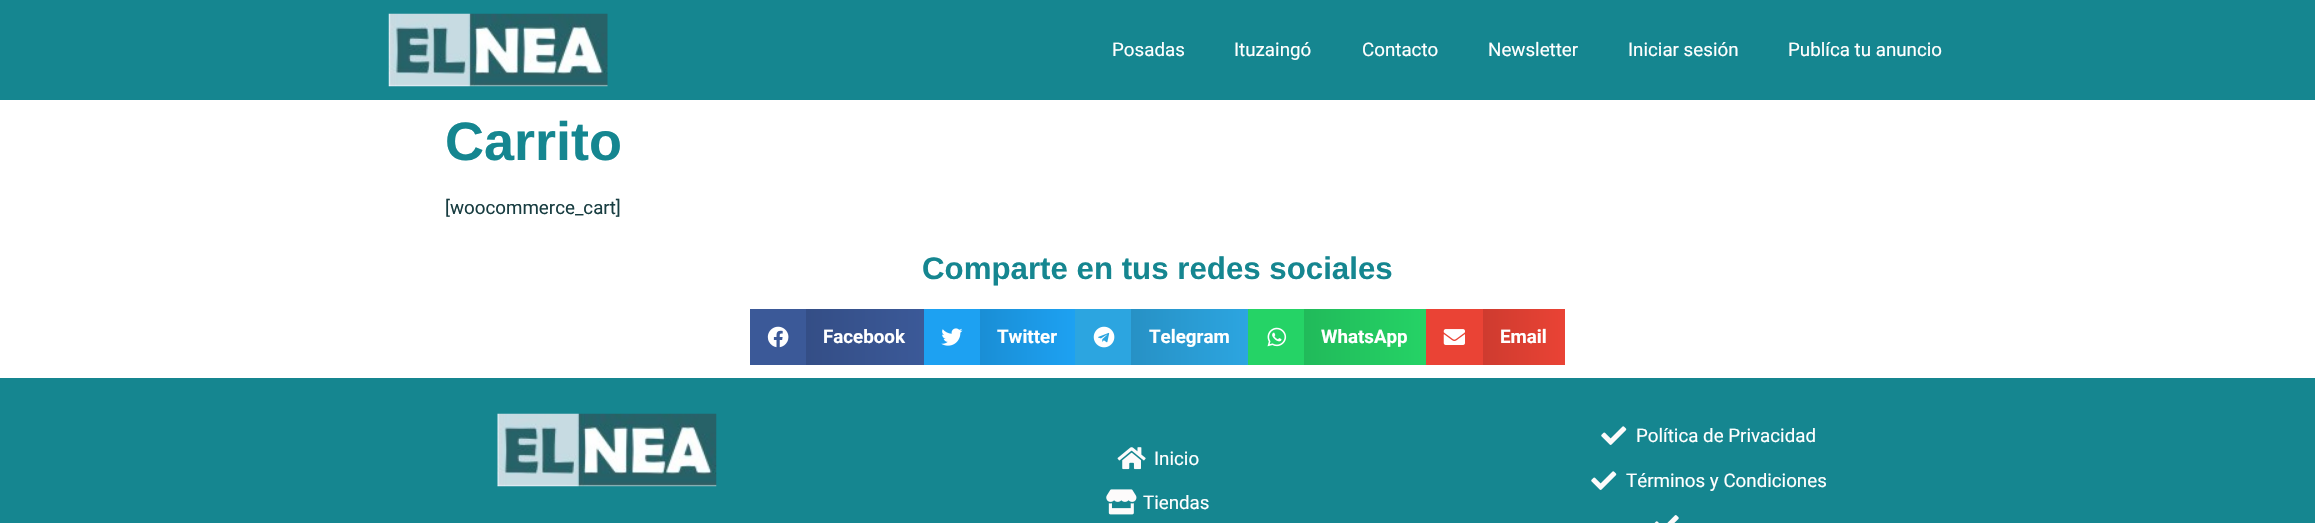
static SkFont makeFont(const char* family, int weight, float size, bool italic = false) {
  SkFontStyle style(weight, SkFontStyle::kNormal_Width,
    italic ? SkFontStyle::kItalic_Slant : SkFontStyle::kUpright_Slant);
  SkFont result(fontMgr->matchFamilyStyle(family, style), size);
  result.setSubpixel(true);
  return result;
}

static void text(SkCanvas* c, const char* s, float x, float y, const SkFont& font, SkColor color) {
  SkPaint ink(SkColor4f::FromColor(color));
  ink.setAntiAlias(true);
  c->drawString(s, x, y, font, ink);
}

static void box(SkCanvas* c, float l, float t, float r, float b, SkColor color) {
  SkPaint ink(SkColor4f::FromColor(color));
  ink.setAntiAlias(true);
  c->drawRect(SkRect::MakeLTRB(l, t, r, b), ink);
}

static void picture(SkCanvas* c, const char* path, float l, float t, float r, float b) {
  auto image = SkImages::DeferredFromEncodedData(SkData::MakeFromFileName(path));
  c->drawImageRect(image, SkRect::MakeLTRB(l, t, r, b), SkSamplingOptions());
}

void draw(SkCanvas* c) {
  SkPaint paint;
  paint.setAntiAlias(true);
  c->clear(0xffffffff);
  box(c, 0, 0, 2315, 100, 0xff158690);
  picture(c, "img_01.png", 388, 13, 608, 87);
  SkFont face1 = makeFont("Roboto", 400, 18.75f);
  text(c, "Posadas", 1112, 56, face1, 0xffffffff);
  text(c, "Ituzaingó", 1234, 56, face1, 0xffffffff);
  text(c, "Contacto", 1362, 56, face1, 0xffffffff);
  text(c, "Newsletter", 1488, 56, face1, 0xffffffff);
  text(c, "Iniciar sesión", 1628, 56, face1, 0xffffffff);
  text(c, "Publíca tu anuncio", 1788, 56, face1, 0xffffffff);
  SkFont face2 = makeFont("Liberation Sans", 700, 54);
  text(c, "Carrito", 445, 160, face2, 0xff158690);
  text(c, "[woocommerce_cart]", 445, 214, face1, 0xff183d41);
  SkFont face3 = makeFont("Liberation Sans", 700, 31.25f);
  text(c, "Comparte en tus redes sociales", 922, 279, face3, 0xff158690);
  box(c, 750, 309, 806, 365, 0xff3b5998);
  picture(c, "img_02.png", 767, 326, 789, 348);
  {
    const SkColor colors[] = {0xff344e86, 0xff3b5998};
    const float stops[] = {0, 1};
    const SkPoint ends[] = {{806, 337}, {924, 337}};
    paint.setShader(SkGradientShader::MakeLinear(ends, colors, stops, 2, SkTileMode::kClamp));
    paint.setAlpha(255);
  }
  c->drawRect(SkRect::MakeLTRB(806, 309, 924, 365), paint);
  SkFont face4 = makeFont("Roboto", 700, 18.75f);
  text(c, "Facebook", 823, 343, face4, 0xffffffff);
  box(c, 924, 309, 980, 365, 0xff1da1f2);
  picture(c, "img_03.png", 941, 328, 963, 346);
  {
    const SkColor colors[] = {0xff1a8ed5, 0xff1da1f2};
    const float stops[] = {0, 1};
    const SkPoint ends[] = {{980, 337}, {1075, 337}};
    paint.setShader(SkGradientShader::MakeLinear(ends, colors, stops, 2, SkTileMode::kClamp));
    paint.setAlpha(255);
  }
  c->drawRect(SkRect::MakeLTRB(980, 309, 1075, 365), paint);
  text(c, "Twitter", 997, 343, face4, 0xffffffff);
  box(c, 1075, 309, 1131, 365, 0xff2ca5e0);
  picture(c, "img_04.png", 1093, 326, 1115, 348);
  {
    const SkColor colors[] = {0xff2791c5, 0xff2ca5e0};
    const float stops[] = {0, 1};
    const SkPoint ends[] = {{1131, 337}, {1248, 337}};
    paint.setShader(SkGradientShader::MakeLinear(ends, colors, stops, 2, SkTileMode::kClamp));
    paint.setAlpha(255);
  }
  c->drawRect(SkRect::MakeLTRB(1131, 309, 1248, 365), paint);
  text(c, "Telegram", 1149, 343, face4, 0xffffffff);
  box(c, 1248, 309, 1304, 365, 0xff25d366);
  picture(c, "img_05.png", 1267, 327, 1287, 347);
  {
    const SkColor colors[] = {0xff21ba5a, 0xff25d366};
    const float stops[] = {0, 1};
    const SkPoint ends[] = {{1304, 337}, {1426, 337}};
    paint.setShader(SkGradientShader::MakeLinear(ends, colors, stops, 2, SkTileMode::kClamp));
    paint.setAlpha(255);
  }
  c->drawRect(SkRect::MakeLTRB(1304, 309, 1426, 365), paint);
  text(c, "WhatsApp", 1321, 343, face4, 0xffffffff);
  box(c, 1426, 309, 1483, 365, 0xffea4335);
  picture(c, "img_06.png", 1443, 329, 1465, 345);
  {
    const SkColor colors[] = {0xffce3b2f, 0xffea4335};
    const float stops[] = {0, 1};
    const SkPoint ends[] = {{1483, 337}, {1565, 337}};
    paint.setShader(SkGradientShader::MakeLinear(ends, colors, stops, 2, SkTileMode::kClamp));
    paint.setAlpha(255);
  }
  c->drawRect(SkRect::MakeLTRB(1483, 309, 1565, 365), paint);
  text(c, "Email", 1500, 343, face4, 0xffffffff);
  box(c, 0, 378, 2315, 523, 0xff158690);
  picture(c, "img_07.png", 497, 413, 717, 487);
  picture(c, "img_08.png", 1117, 447, 1146, 470);
  text(c, "Inicio", 1154, 465, face1, 0xffffffff);
  picture(c, "img_09.png", 1106, 489, 1137, 515);
  text(c, "Tiendas", 1143, 509, face1, 0xffffffff);
  picture(c, "img_10.png", 1601, 426, 1627, 445);
  text(c, "Política de Privacidad", 1636, 442, face1, 0xffffffff);
  picture(c, "img_10.png", 1591, 471, 1617, 490);
  text(c, "Términos y Condiciones", 1626, 487, face1, 0xffffffff);
  picture(c, "img_11.png", 1654, 515, 1679, 523);
}
